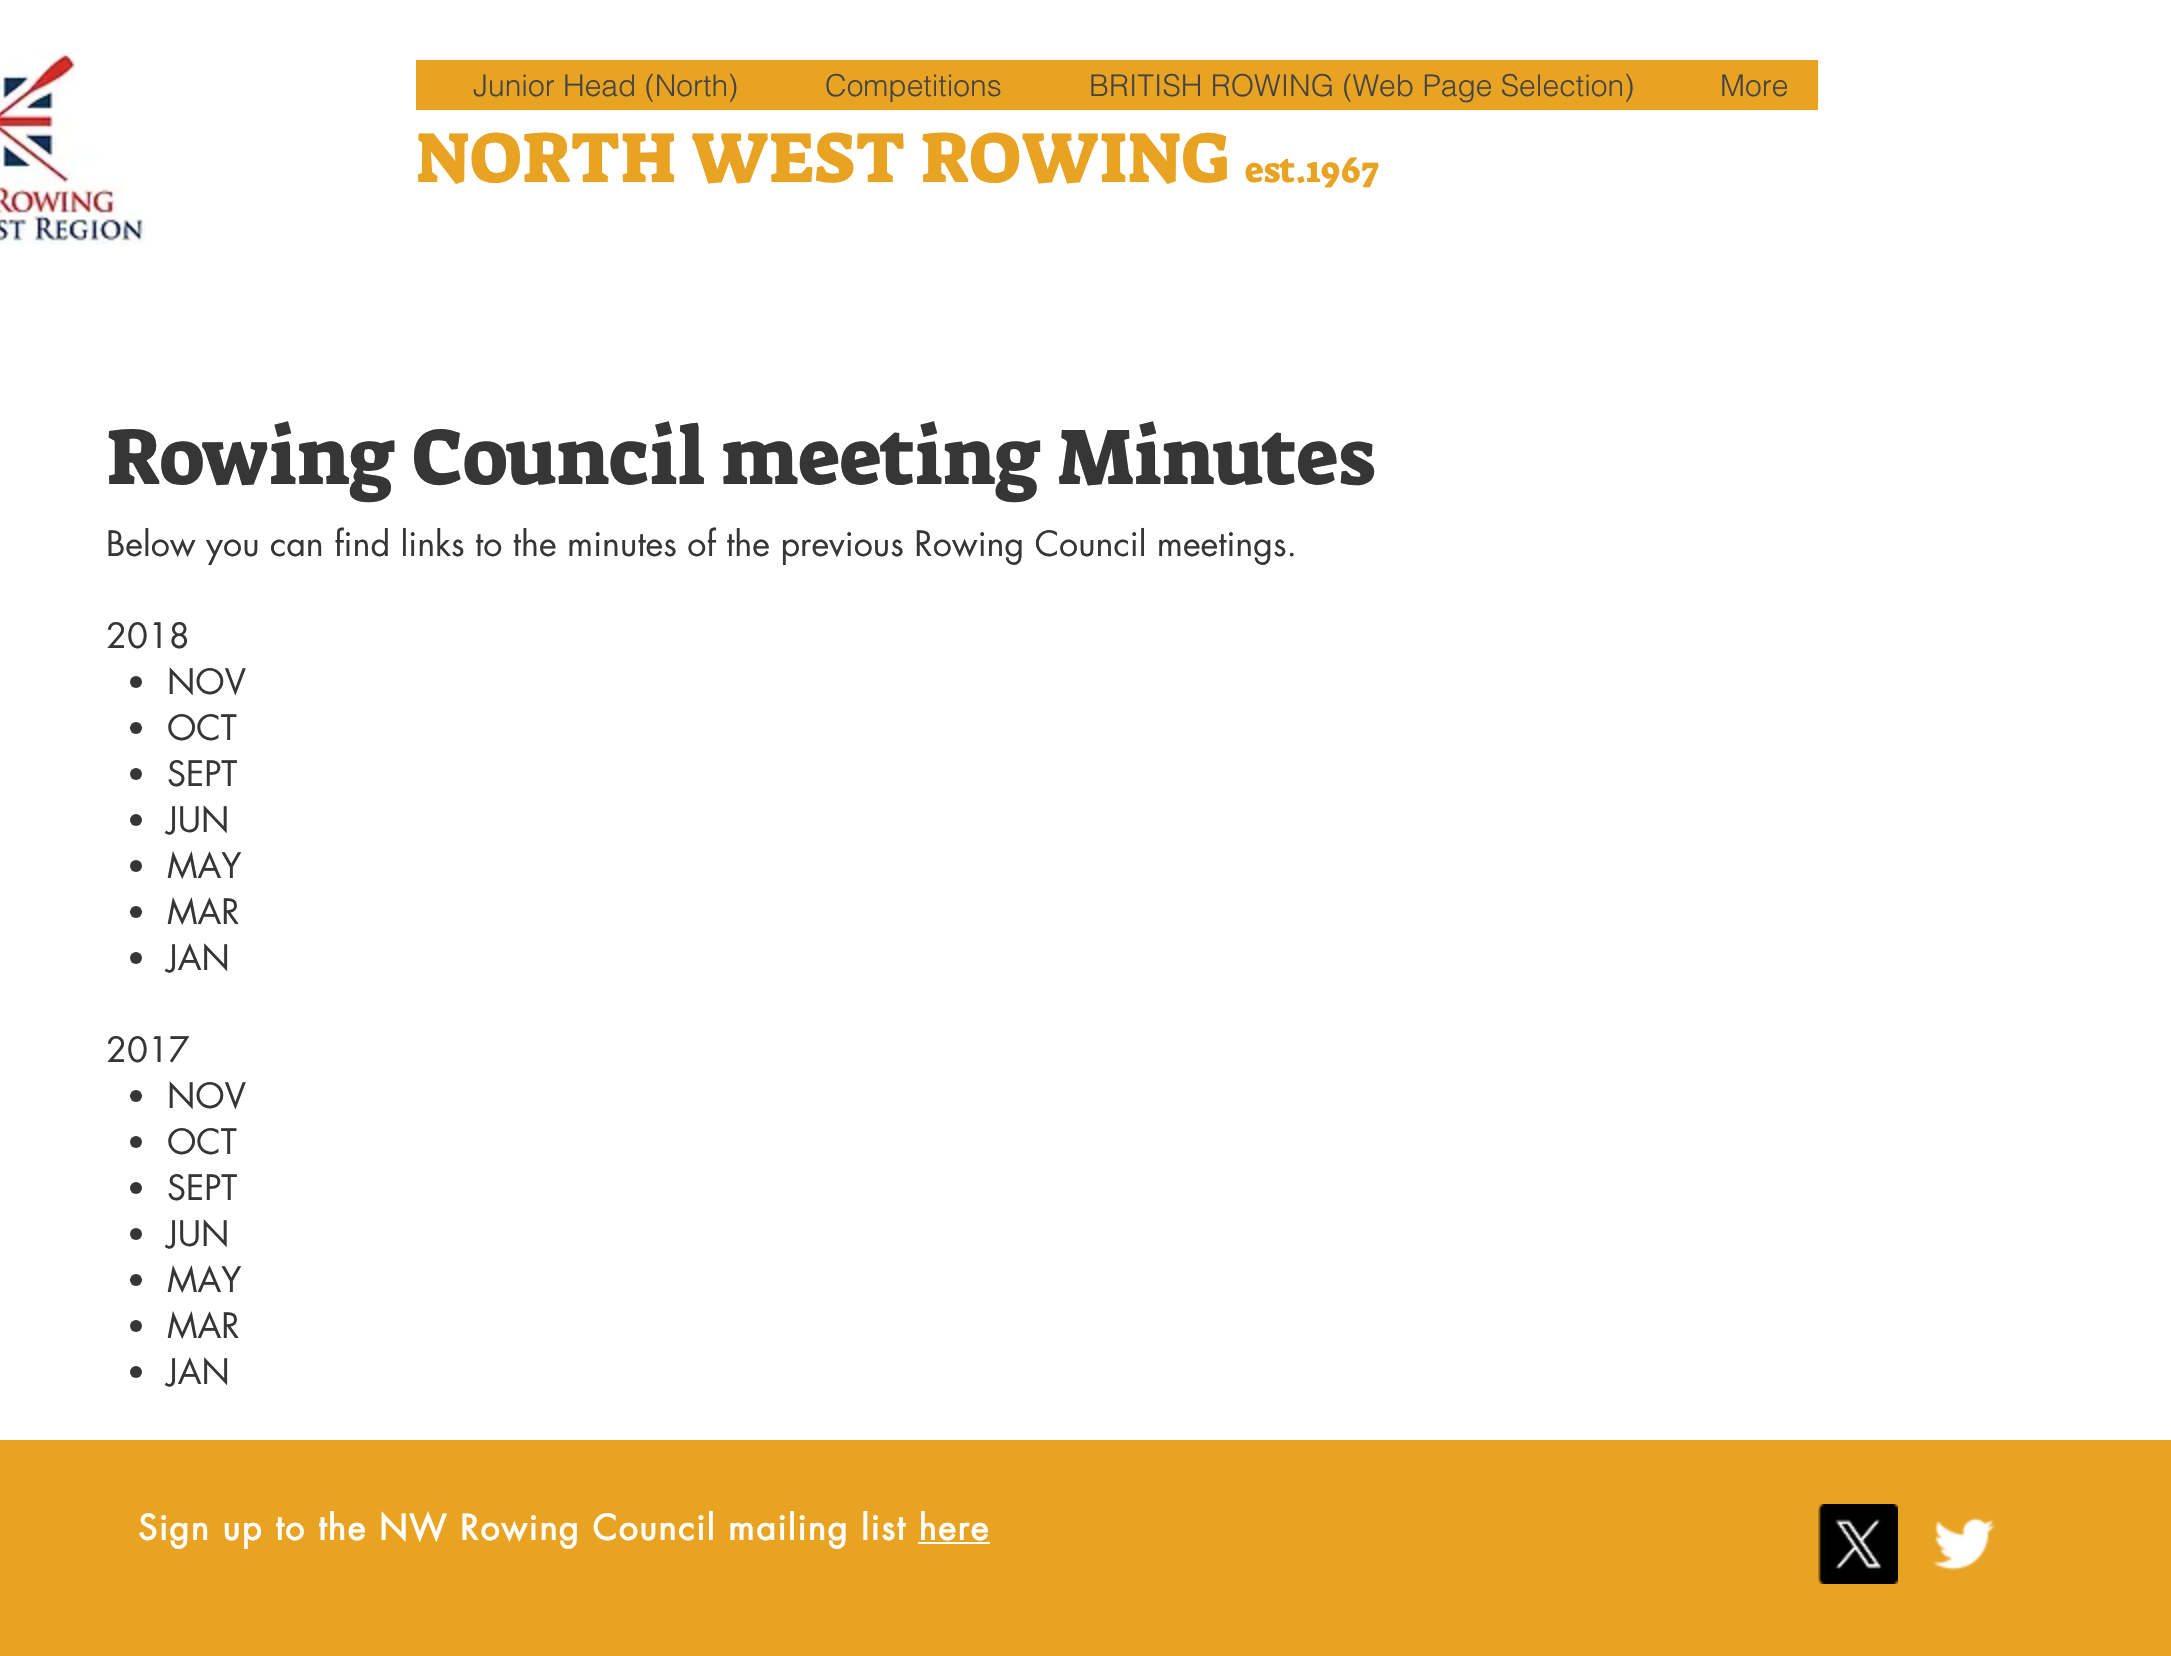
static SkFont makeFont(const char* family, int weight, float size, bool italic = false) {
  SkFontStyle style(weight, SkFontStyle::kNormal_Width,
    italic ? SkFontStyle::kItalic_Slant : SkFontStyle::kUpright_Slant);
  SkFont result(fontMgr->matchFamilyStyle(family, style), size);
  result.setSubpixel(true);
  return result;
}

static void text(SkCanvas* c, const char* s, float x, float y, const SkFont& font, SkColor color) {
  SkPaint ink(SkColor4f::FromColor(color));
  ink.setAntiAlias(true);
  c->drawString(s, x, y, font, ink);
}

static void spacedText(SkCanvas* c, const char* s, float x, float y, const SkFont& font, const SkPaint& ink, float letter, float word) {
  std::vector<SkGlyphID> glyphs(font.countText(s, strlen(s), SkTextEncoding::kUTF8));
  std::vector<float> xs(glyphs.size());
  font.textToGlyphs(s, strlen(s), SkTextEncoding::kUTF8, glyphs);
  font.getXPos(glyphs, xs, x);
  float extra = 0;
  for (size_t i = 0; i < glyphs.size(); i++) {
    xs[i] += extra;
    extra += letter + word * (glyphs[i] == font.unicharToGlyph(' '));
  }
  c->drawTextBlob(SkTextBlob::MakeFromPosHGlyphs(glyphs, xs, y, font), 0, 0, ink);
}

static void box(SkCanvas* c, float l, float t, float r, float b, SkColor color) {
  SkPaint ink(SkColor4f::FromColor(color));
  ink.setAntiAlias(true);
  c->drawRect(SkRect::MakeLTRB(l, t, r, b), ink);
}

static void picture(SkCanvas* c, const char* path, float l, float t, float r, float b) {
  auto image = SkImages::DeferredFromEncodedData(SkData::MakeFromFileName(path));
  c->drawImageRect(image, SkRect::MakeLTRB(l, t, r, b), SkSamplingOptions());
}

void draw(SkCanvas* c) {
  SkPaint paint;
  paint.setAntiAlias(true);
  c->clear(0xffffffff);
  picture(c, "img_01.png", 0, 52, 147, 245);
  box(c, 416, 60, 1818, 110, 0xffe8a323);
  SkFont face1 = makeFont("helvetica", 300, 30);
  text(c, "Junior Head (North)", 473, 96, face1, 0xff444444);
  text(c, "Competitions", 825, 96, face1, 0xff444444);
  text(c, "BRITISH ROWING (Web Page Selection)", 1089, 96, face1, 0xff444444);
  text(c, "More", 1720, 96, face1, 0xff444444);
  SkFont face2 = makeFont("Suez One", 400, 72);
  text(c, "NORTH WEST ROWING", 416, 182, face2, 0xffe8a323);
  SkFont face3 = makeFont("Suez One", 400, 36);
  text(c, "est.1967", 1245, 182, face3, 0xffe8a323);
  SkFont face4 = makeFont("Suez One", 400, 80);
  text(c, "Rowing Council meeting Minutes", 106, 484, face4, 0xff363636);
  SkFont face5 = makeFont("futura", 400, 34);
  text(c, "Below you can find links to the minutes of the previous Rowing Council meetings.", 106, 556, face5, 0xff363636);
  text(c, "2018", 106, 648, face5, 0xff363636);
  paint.setColor(0xff363636);
  c->drawCircle(136, 682, 6, paint);
  text(c, "NOV", 167, 694, face5, 0xff363636);
  c->drawCircle(136, 728, 6, paint);
  text(c, "OCT", 167, 740, face5, 0xff363636);
  c->drawCircle(136, 774, 6, paint);
  text(c, "SEPT", 167, 786, face5, 0xff363636);
  c->drawCircle(136, 820, 6, paint);
  text(c, "JUN", 167, 832, face5, 0xff363636);
  c->drawCircle(136, 866, 6, paint);
  text(c, "MAY", 167, 878, face5, 0xff363636);
  c->drawCircle(136, 912, 6, paint);
  text(c, "MAR", 167, 924, face5, 0xff363636);
  c->drawCircle(136, 958, 6, paint);
  text(c, "JAN", 167, 970, face5, 0xff363636);
  text(c, "2017", 106, 1062, face5, 0xff363636);
  c->drawCircle(136, 1096, 6, paint);
  text(c, "NOV", 167, 1108, face5, 0xff363636);
  c->drawCircle(136, 1142, 6, paint);
  text(c, "OCT", 167, 1154, face5, 0xff363636);
  c->drawCircle(136, 1188, 6, paint);
  text(c, "SEPT", 167, 1200, face5, 0xff363636);
  c->drawCircle(136, 1234, 6, paint);
  text(c, "JUN", 167, 1246, face5, 0xff363636);
  c->drawCircle(136, 1280, 6, paint);
  text(c, "MAY", 167, 1292, face5, 0xff363636);
  c->drawCircle(136, 1326, 6, paint);
  text(c, "MAR", 167, 1338, face5, 0xff363636);
  c->drawCircle(136, 1372, 6, paint);
  text(c, "JAN", 167, 1384, face5, 0xff363636);
  box(c, 0, 1440, 2171, 1656, 0xffe8a323);
  SkFont face6 = makeFont("futura", 700, 34);
  paint.setColor(0xffffffff);
  spacedText(c, "Sign up to the NW Rowing Council mailing list here", 138, 1540, face6, paint, 1.7f, 0);
  box(c, 918, 1542, 990, 1544, 0xffffffff);
  picture(c, "img_02.png", 1818, 1504, 1898, 1584);
  picture(c, "img_03.png", 1933, 1517, 1995, 1571);
}
